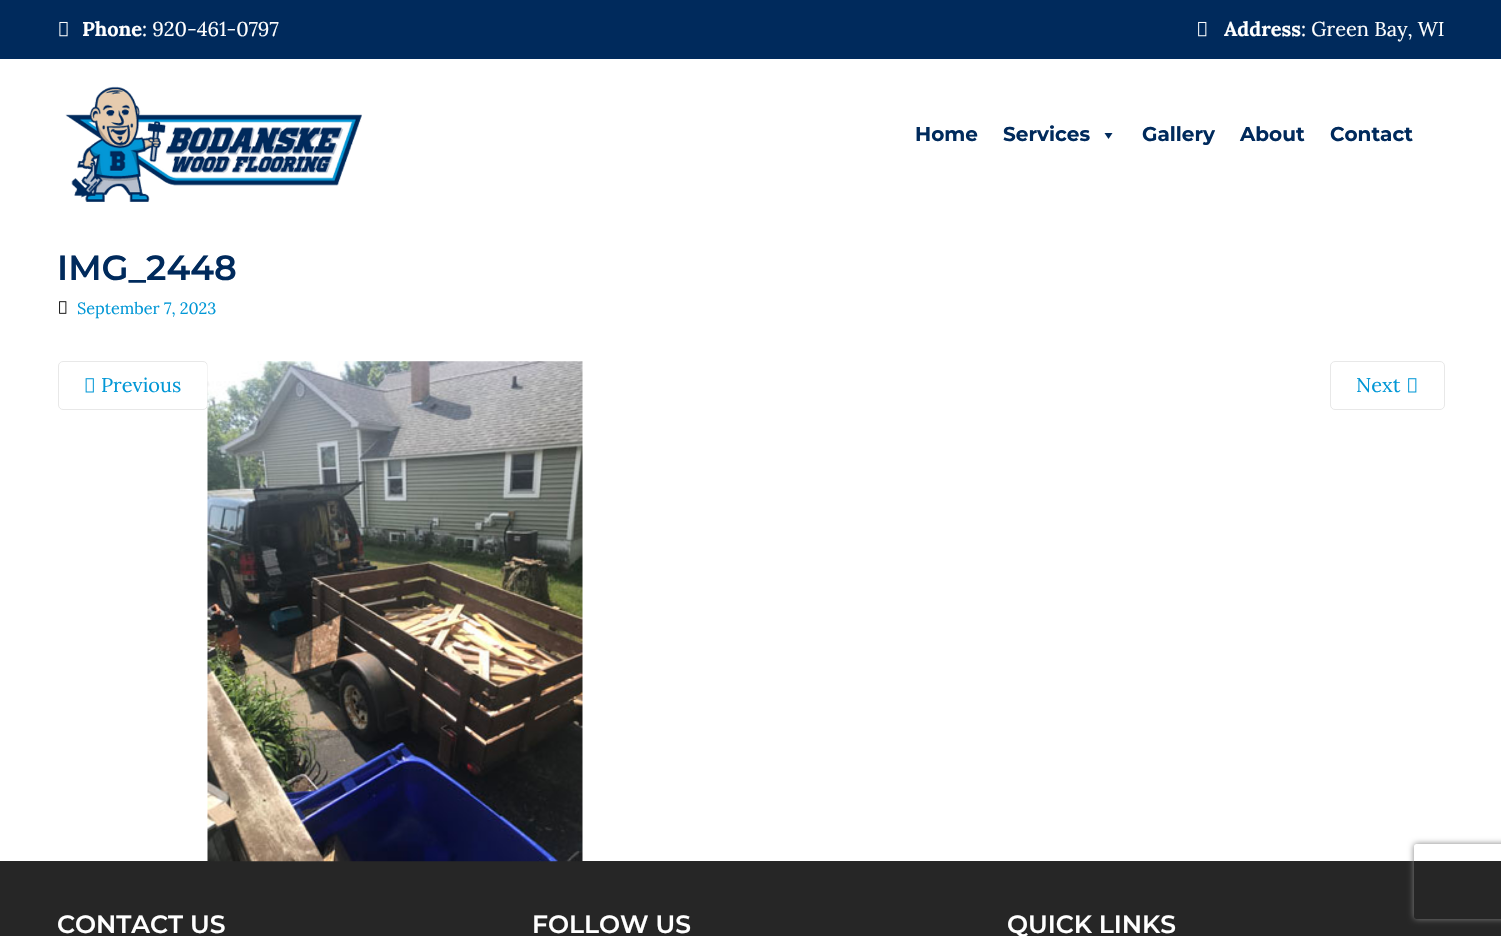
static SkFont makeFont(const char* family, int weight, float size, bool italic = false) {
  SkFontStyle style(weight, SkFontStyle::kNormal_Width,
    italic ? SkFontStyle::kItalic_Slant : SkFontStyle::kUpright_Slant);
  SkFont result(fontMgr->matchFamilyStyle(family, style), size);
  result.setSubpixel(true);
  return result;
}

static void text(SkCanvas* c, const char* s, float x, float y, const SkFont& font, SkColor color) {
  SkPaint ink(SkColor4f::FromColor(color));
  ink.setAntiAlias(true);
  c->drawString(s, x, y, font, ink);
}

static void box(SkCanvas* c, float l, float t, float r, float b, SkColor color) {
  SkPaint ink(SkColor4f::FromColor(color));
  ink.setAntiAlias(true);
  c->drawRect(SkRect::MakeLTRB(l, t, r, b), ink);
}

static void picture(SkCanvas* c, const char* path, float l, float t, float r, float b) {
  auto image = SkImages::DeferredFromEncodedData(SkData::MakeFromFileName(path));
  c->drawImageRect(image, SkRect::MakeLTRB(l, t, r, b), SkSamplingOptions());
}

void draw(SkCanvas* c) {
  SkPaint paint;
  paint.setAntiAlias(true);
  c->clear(0xffffffff);
  box(c, 0, 0, 1501, 59, 0xff002a5c);
  picture(c, "img_01.png", 59, 21, 68, 37);
  SkFont face1 = makeFont("Lora", 700, 20);
  text(c, "Phone", 82, 36, face1, 0xffffffff);
  SkFont face2 = makeFont("Lora", 400, 20);
  text(c, ": 920-461-0797", 142, 36, face2, 0xffffffff);
  picture(c, "img_02.png", 1198, 21, 1207, 37);
  text(c, "Address", 1224, 36, face1, 0xffffffff);
  text(c, ": Green Bay, WI", 1301, 36, face2, 0xffffffff);
  picture(c, "img_03.png", 65, 86, 362, 202);
  SkFont face3 = makeFont("Montserrat", 700, 20);
  text(c, "Home", 915, 141, face3, 0xff002a5c);
  text(c, "Services", 1003, 141, face3, 0xff002a5c);
  paint.setColor(0xff002a5c);
  c->drawPath(SkPathBuilder().moveTo(1112.5f, 133).lineTo(1108.5f, 139).lineTo(1104.5f, 133).close().detach(), paint);
  text(c, "Gallery", 1142, 141, face3, 0xff002a5c);
  text(c, "About", 1240, 141, face3, 0xff002a5c);
  text(c, "Contact", 1330, 141, face3, 0xff002a5c);
  SkFont face4 = makeFont("Montserrat", 600, 35);
  text(c, "IMG_2448", 57, 280, face4, 0xff002a5c);
  picture(c, "img_04.png", 59, 301, 67, 314);
  SkFont face5 = makeFont("Lora", 400, 16.25f);
  text(c, "September 7, 2023", 77, 314, face5, 0xff0197d6);
  paint.setStyle(SkPaint::kStroke_Style);
  paint.setStrokeWidth(1);
  paint.setColor(0xffe8e8e8);
  c->drawRoundRect(SkRect::MakeLTRB(58.5f, 361.5f, 207.5f, 409.5f), 4.5f, 4.5f, paint);
  picture(c, "img_05.png", 85, 378, 94, 393);
  text(c, "Previous", 101, 392, face2, 0xff0197d6);
  c->drawRoundRect(SkRect::MakeLTRB(1330.5f, 361.5f, 1444.5f, 409.5f), 4.5f, 4.5f, paint);
  text(c, "Next", 1356, 392, face2, 0xff0197d6);
  picture(c, "img_06.png", 1408, 378, 1417, 393);
  box(c, 0, 861, 1501, 936, 0xff262626);
  picture(c, "img_07.png", 207, 361, 583, 862);
  SkFont face6 = makeFont("Montserrat", 600, 25);
  text(c, "CONTACT US", 57, 933, face6, 0xffffffff);
  text(c, "FOLLOW US", 532, 933, face6, 0xffffffff);
  text(c, "QUICK LINKS", 1007, 933, face6, 0xffffffff);
  c->save();
  c->clipPath(SkPathBuilder(SkPathFillType::kEvenOdd).moveTo(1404, 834).lineTo(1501, 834).lineTo(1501, 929).lineTo(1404, 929).close().moveTo(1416.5f, 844).lineTo(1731.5f, 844).cubicTo(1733, 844, 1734, 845, 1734, 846.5f).lineTo(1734, 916.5f).cubicTo(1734, 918, 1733, 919, 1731.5f, 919).lineTo(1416.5f, 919).cubicTo(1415, 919, 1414, 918, 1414, 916.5f).lineTo(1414, 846.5f).cubicTo(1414, 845, 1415, 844, 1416.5f, 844).close().detach(), true);
  paint.setStyle(SkPaint::kFill_Style);
  paint.setColor(0xff808080);
  paint.setMaskFilter(SkMaskFilter::MakeBlur(kNormal_SkBlurStyle, 3));
  c->drawRoundRect(SkRect::MakeLTRB(1414, 844, 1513, 919), 2.5f, 2.5f, paint);
  paint.setMaskFilter(nullptr);
  c->restore();
}
